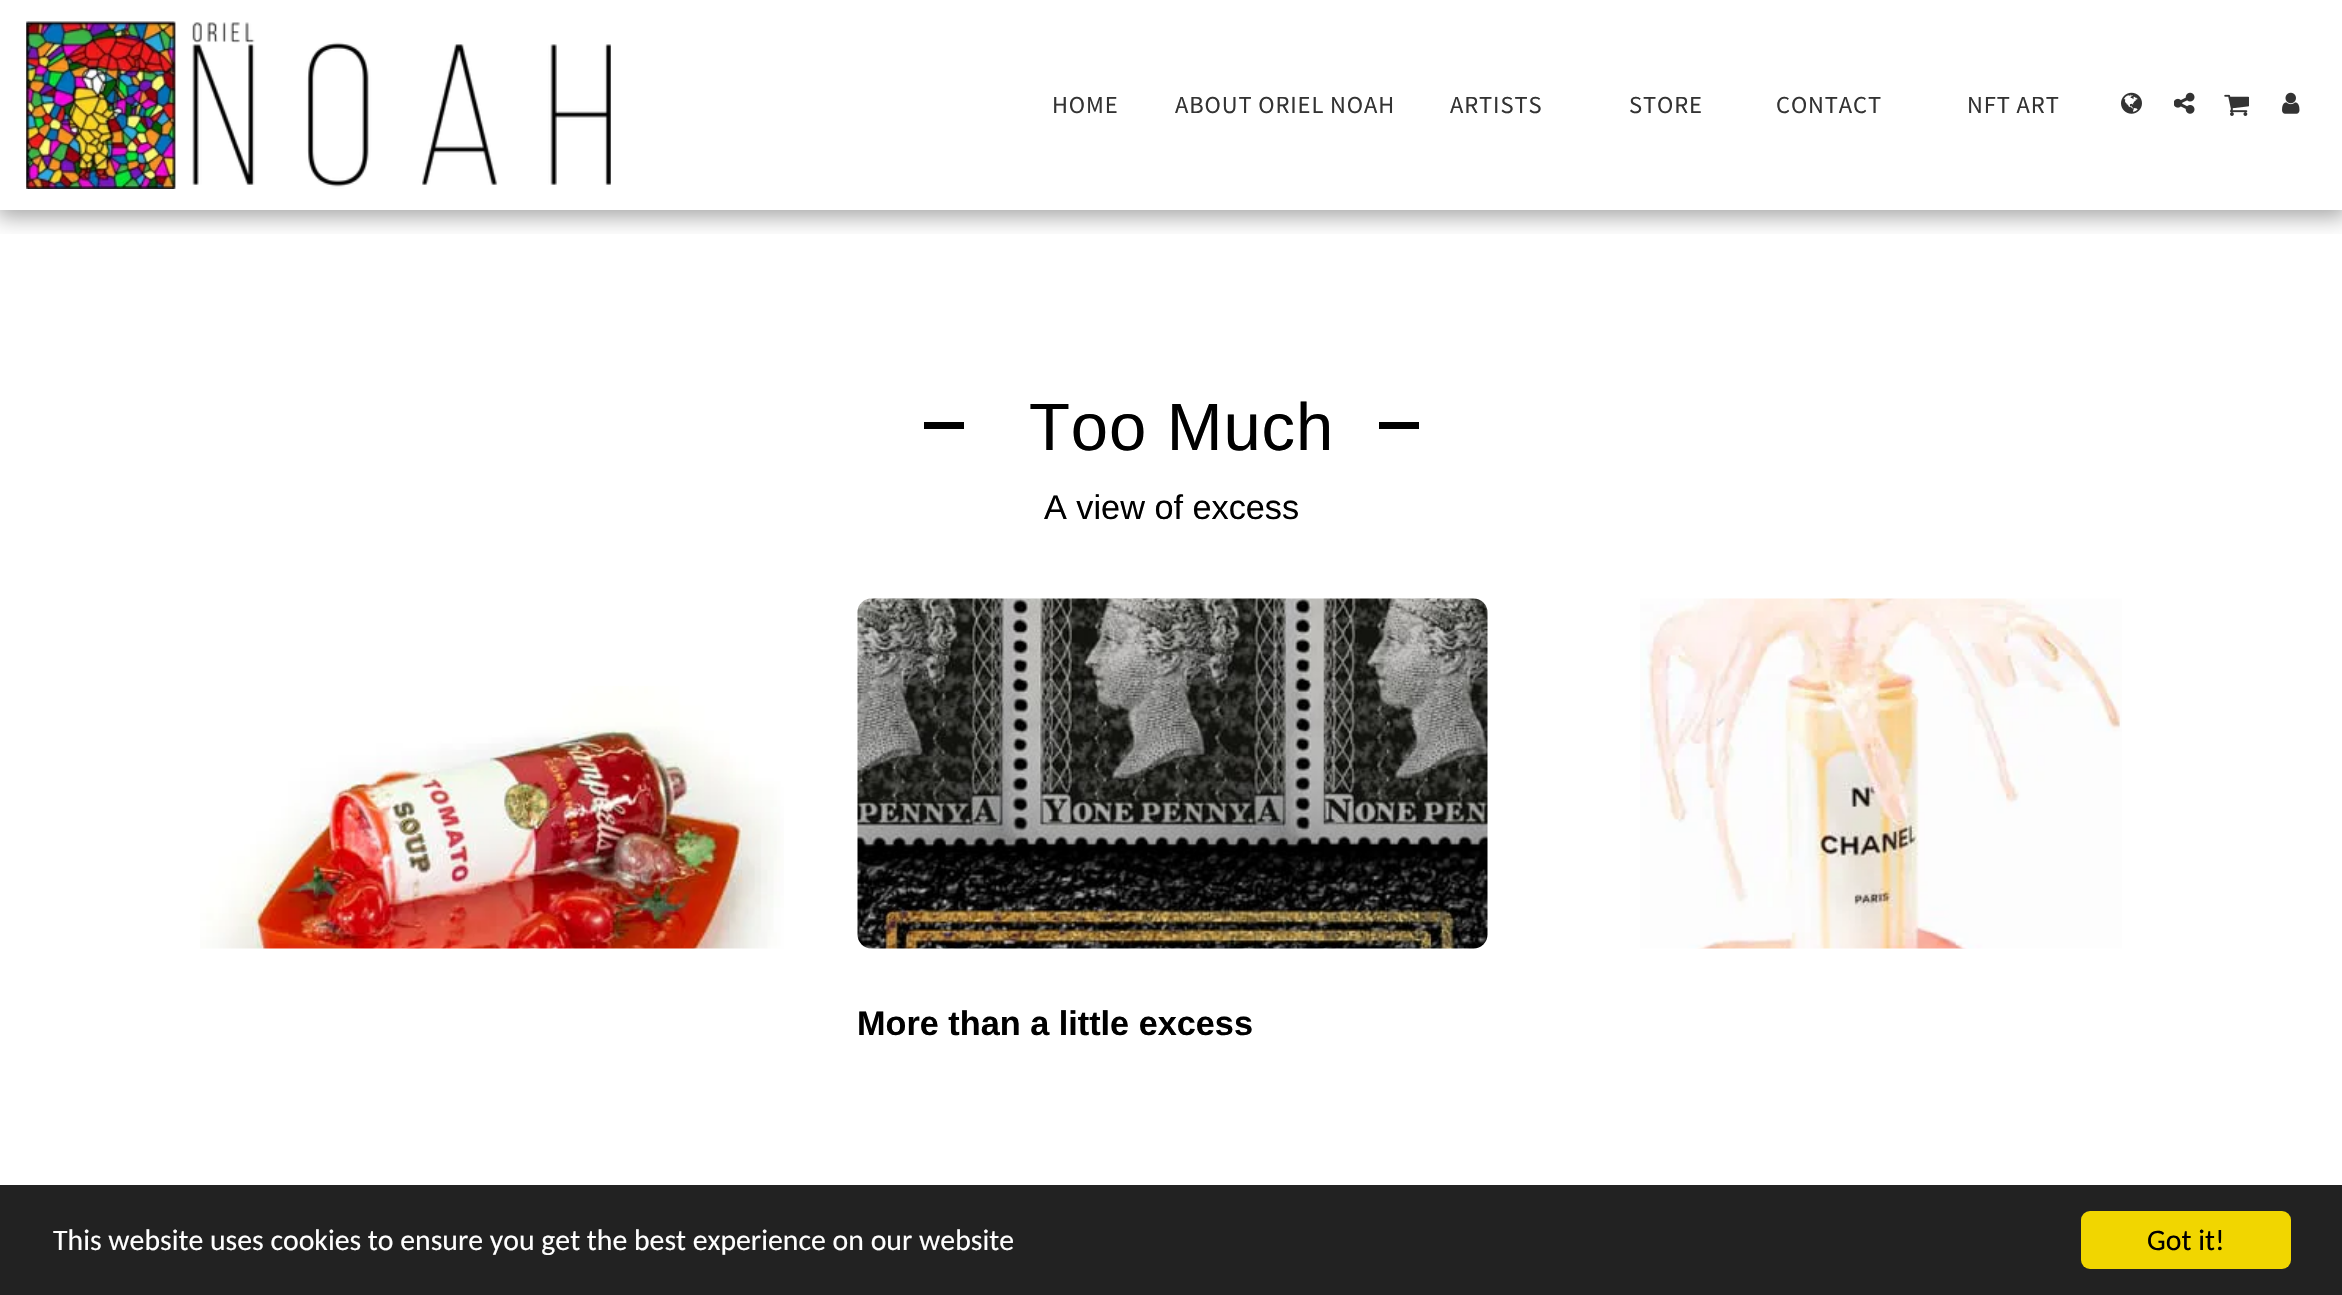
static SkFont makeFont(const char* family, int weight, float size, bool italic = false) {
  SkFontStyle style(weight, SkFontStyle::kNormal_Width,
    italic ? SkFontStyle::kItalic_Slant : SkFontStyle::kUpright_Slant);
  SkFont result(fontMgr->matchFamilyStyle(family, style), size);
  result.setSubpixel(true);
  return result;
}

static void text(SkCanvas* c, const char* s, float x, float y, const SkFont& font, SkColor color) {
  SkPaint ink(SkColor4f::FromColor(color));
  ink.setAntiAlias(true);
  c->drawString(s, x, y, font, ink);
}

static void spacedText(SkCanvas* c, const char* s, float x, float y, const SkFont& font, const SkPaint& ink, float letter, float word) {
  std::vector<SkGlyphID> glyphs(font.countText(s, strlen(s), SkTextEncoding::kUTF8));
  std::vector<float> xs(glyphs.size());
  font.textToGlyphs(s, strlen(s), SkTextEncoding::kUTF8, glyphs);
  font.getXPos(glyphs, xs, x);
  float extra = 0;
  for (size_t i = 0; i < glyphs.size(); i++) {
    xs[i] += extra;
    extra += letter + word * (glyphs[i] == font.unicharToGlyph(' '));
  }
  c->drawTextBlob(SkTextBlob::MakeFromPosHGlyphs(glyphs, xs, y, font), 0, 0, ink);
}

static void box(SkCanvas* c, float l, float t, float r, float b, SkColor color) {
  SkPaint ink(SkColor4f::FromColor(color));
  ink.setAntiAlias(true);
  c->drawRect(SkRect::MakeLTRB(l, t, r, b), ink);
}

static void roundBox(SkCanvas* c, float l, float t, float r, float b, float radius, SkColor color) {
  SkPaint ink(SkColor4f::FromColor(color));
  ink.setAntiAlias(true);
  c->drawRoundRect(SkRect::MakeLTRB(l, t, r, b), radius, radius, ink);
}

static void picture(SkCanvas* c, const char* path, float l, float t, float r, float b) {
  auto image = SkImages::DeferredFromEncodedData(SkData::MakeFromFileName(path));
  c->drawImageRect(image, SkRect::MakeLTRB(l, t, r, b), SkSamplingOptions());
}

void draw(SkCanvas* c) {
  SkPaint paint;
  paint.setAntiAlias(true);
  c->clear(0xffffffff);
  c->save();
  c->clipRect(SkRect::MakeLTRB(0, 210, 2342, 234));
  paint.setColor(0x59000000);
  paint.setMaskFilter(SkMaskFilter::MakeBlur(kNormal_SkBlurStyle, 10.5f));
  c->drawRect(SkRect::MakeLTRB(-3, 0, 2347, 217), paint);
  paint.setMaskFilter(nullptr);
  c->restore();
  picture(c, "img_01.png", 26, 21, 611, 189);
  SkFont face1 = makeFont("Source Sans Pro", 400, 24.5f);
  paint.setColor(0xff333333);
  spacedText(c, "HOME", 1052, 113, face1, paint, 0.9f, 0);
  spacedText(c, "ABOUT ORIEL NOAH", 1175, 113, face1, paint, 0.9f, 0);
  spacedText(c, "ARTISTS", 1450, 113, face1, paint, 0.9f, 0);
  spacedText(c, "STORE", 1629, 113, face1, paint, 0.9f, 0);
  spacedText(c, "CONTACT", 1776, 113, face1, paint, 0.9f, 0);
  spacedText(c, "NFT ART", 1967, 113, face1, paint, 0.9f, 0);
  picture(c, "img_02.png", 2121, 92, 2142, 114);
  picture(c, "img_03.png", 2174, 92, 2195, 114);
  picture(c, "img_04.png", 2224, 94, 2249, 116);
  picture(c, "img_05.png", 2282, 92, 2300, 114);
  box(c, 924, 422, 964, 429, 0xff000000);
  SkFont face2 = makeFont("Liberation Sans", 400, 67);
  paint.setColor(0xff000000);
  spacedText(c, "Too Much", 1029, 450, face2, paint, 0.9f, 0);
  box(c, 1379, 422, 1419, 429, 0xff000000);
  SkFont face3 = makeFont("Liberation Sans", 400, 34.25f);
  text(c, "A view of excess", 1044, 519, face3, 0xff000000);
  picture(c, "img_06.png", 200, 686, 784, 949);
  picture(c, "img_07.png", 1640, 598, 2122, 949);
  picture(c, "img_08.png", 857, 598, 1488, 949);
  SkFont face4 = makeFont("Liberation Sans", 700, 34.25f);
  text(c, "More than a little excess", 857, 1035, face4, 0xff000000);
  box(c, 0, 1185, 2342, 1295, 0xff222222);
  SkFont face5 = makeFont("Carlito", 400, 29.75f);
  text(c, "This website uses cookies to ensure you get the best experience on our website", 53, 1250, face5, 0xffffffff);
  roundBox(c, 2081, 1211, 2291, 1269, 9, 0xfff1d600);
  text(c, "Got it!", 2147, 1250, face5, 0xff000000);
}
